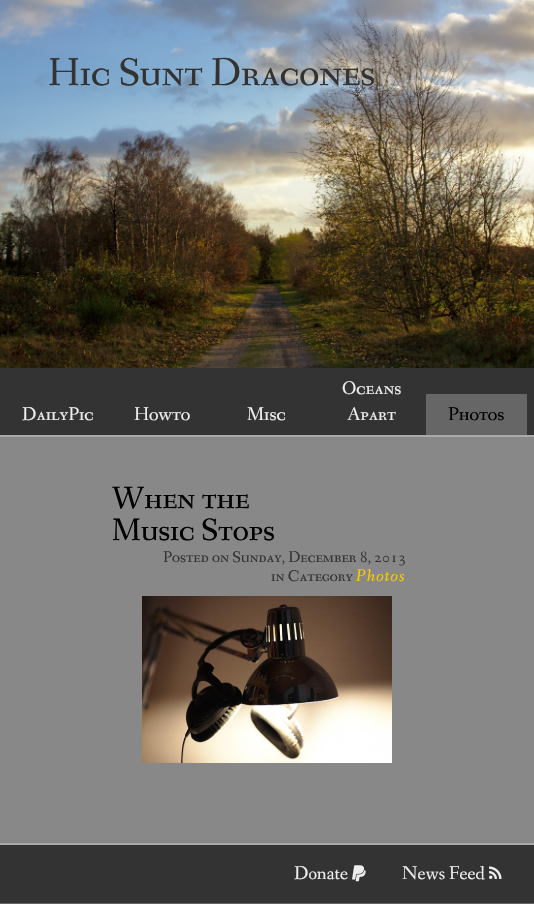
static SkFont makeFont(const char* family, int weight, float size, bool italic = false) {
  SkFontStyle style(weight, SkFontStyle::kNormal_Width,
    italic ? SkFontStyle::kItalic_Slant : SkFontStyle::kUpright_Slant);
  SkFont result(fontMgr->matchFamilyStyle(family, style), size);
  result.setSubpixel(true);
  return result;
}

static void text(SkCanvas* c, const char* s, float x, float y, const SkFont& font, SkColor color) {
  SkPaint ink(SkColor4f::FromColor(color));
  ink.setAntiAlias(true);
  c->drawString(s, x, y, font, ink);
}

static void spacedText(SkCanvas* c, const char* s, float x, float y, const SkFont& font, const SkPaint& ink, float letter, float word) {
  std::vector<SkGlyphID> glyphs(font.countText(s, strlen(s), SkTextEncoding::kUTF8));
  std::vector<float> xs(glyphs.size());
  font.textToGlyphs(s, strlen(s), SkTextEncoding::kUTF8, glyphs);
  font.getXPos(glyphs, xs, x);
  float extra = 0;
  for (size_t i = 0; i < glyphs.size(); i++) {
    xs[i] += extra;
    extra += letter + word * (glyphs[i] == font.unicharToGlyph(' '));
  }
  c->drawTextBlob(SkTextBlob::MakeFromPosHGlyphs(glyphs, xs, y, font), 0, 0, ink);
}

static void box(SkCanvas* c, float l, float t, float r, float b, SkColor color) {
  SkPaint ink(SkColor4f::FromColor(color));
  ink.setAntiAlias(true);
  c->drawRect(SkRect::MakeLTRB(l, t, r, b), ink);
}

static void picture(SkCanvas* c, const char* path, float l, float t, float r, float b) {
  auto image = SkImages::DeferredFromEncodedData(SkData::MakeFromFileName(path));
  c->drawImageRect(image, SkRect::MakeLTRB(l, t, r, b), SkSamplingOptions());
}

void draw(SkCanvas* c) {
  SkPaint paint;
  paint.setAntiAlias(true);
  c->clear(0xff666666);
  box(c, 0, 437, 534, 843, 0xff888888);
  picture(c, "img_01.png", 0, 0, 534, 368);
  SkFont face1 = makeFont("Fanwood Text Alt", 400, 40);
  text(c, "Hic Sunt Dracones", 48, 85, face1, 0xff333333);
  box(c, 0, 368, 534, 435, 0xff333333);
  box(c, 0, 435, 534, 437, 0xffaaaaaa);
  SkFont face2 = makeFont("Fanwood Text Alt", 400, 19);
  text(c, "DailyPic", 22, 420, face2, 0xffeeeeee);
  text(c, "Howto", 134, 420, face2, 0xffeeeeee);
  text(c, "Misc", 247, 420, face2, 0xffeeeeee);
  text(c, "Oceans", 342, 394, face2, 0xffeeeeee);
  text(c, "Apart", 347, 420, face2, 0xffeeeeee);
  box(c, 426, 394, 527, 435, 0xff666666);
  text(c, "Photos", 448, 420, face2, 0xff000000);
  SkFont face3 = makeFont("Fanwood Text Alt", 400, 32);
  text(c, "When the", 112, 508, face3, 0xff000000);
  text(c, "Music Stops", 112, 540, face3, 0xff000000);
  SkFont face4 = makeFont("Fanwood Text Alt", 400, 16);
  text(c, "Posted on Sunday, December 8, 2013", 163, 562, face4, 0xff333333);
  text(c, "in Category", 271, 581, face4, 0xff333333);
  SkFont face5 = makeFont("Fanwood Text", 400, 17.5f, true);
  paint.setColor(0xfffdca01);
  spacedText(c, "Photos", 356, 581, face5, paint, 1, 0);
  picture(c, "img_02.png", 142, 596, 392, 763);
  box(c, 0, 845, 534, 903, 0xff333333);
  box(c, 0, 843, 534, 845, 0xffaaaaaa);
  SkFont face6 = makeFont("Fanwood Text", 400, 19);
  text(c, "Donate", 294, 879, face6, 0xffeeeeee);
  picture(c, "img_03.png", 352, 865, 366, 882);
  text(c, "News Feed", 402, 879, face6, 0xffeeeeee);
  picture(c, "img_04.png", 489, 866, 502, 879);
}
